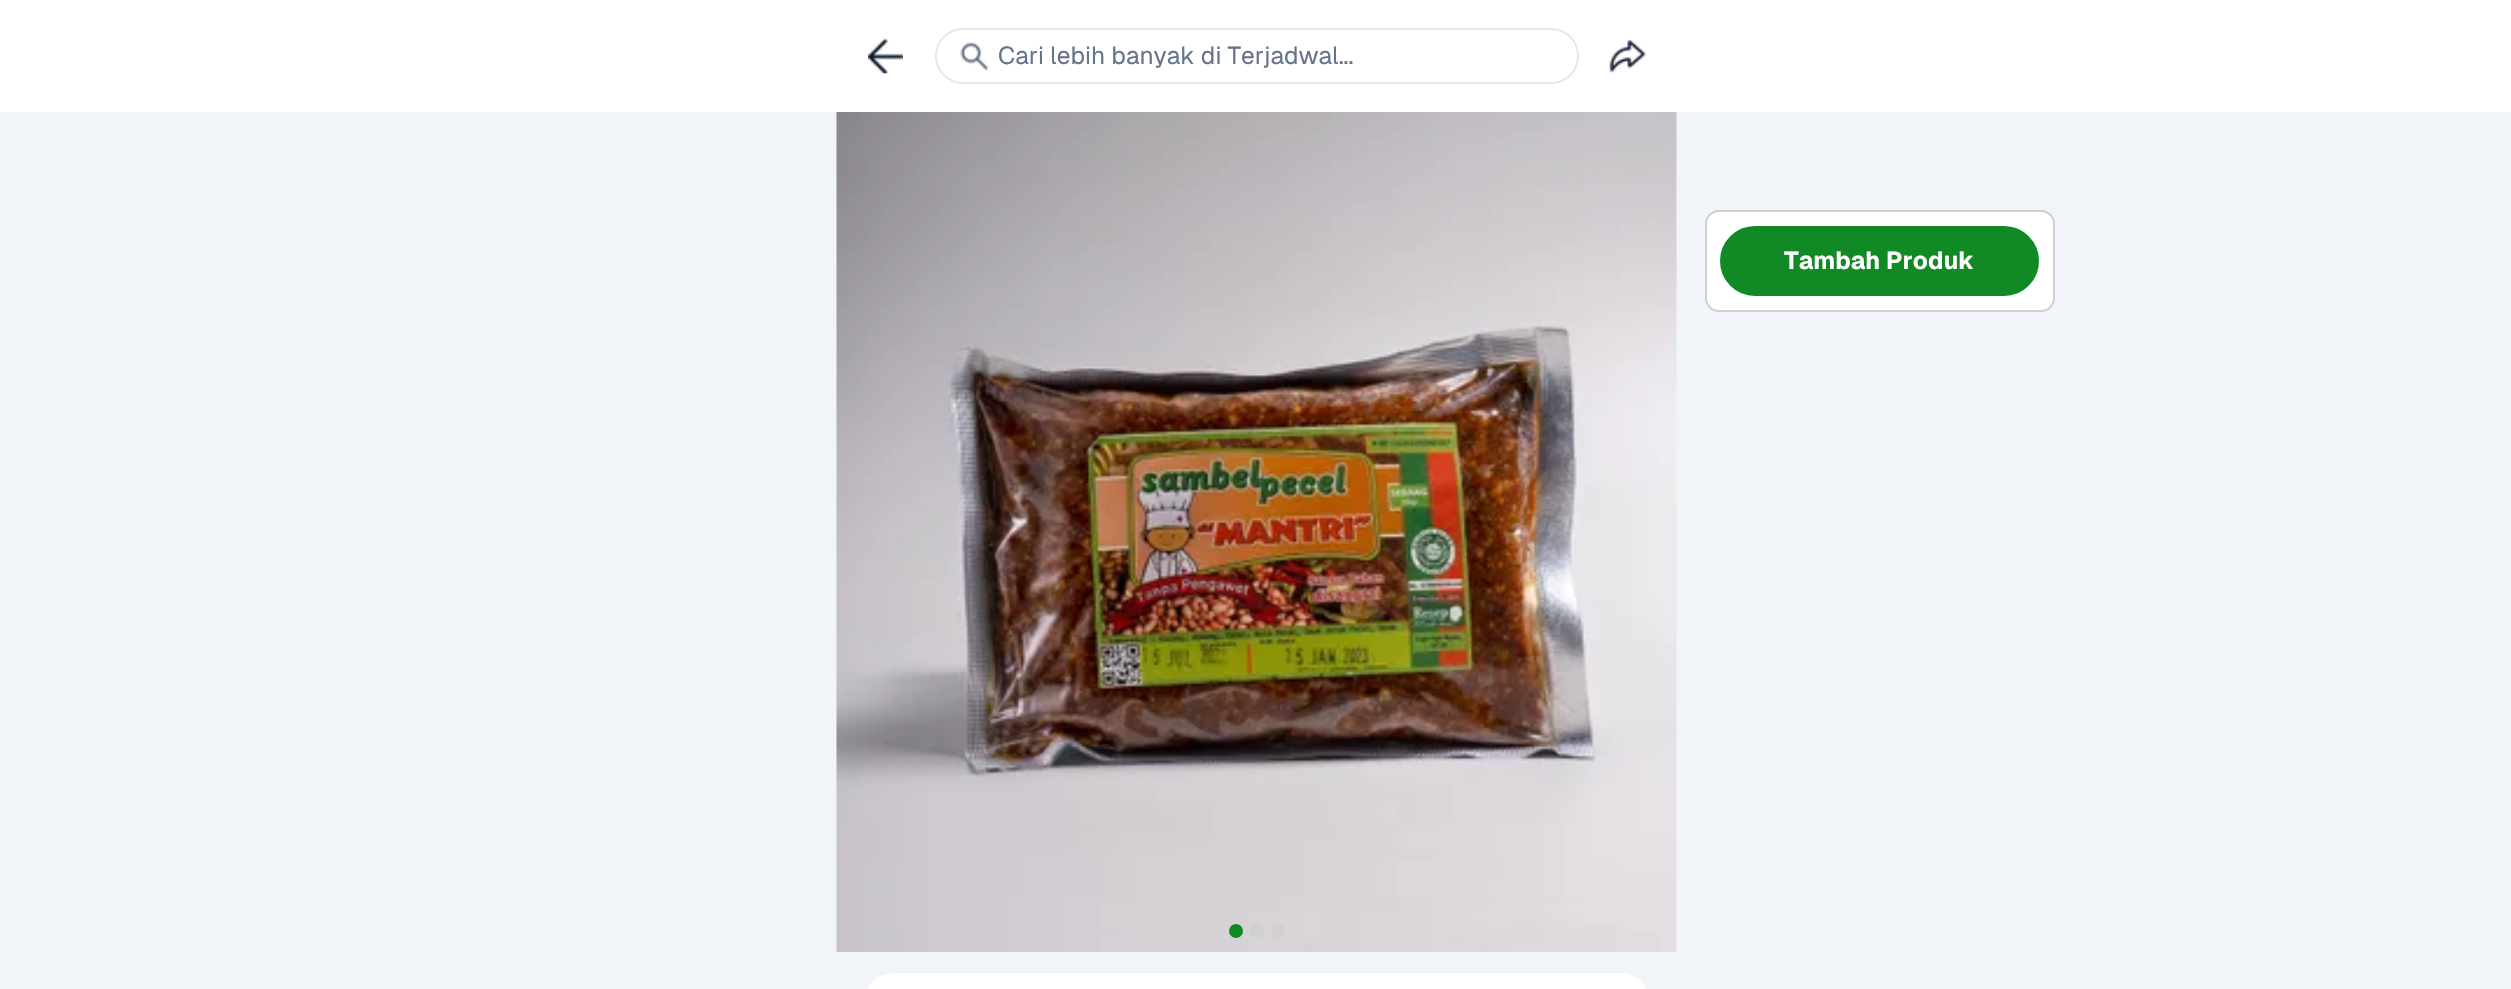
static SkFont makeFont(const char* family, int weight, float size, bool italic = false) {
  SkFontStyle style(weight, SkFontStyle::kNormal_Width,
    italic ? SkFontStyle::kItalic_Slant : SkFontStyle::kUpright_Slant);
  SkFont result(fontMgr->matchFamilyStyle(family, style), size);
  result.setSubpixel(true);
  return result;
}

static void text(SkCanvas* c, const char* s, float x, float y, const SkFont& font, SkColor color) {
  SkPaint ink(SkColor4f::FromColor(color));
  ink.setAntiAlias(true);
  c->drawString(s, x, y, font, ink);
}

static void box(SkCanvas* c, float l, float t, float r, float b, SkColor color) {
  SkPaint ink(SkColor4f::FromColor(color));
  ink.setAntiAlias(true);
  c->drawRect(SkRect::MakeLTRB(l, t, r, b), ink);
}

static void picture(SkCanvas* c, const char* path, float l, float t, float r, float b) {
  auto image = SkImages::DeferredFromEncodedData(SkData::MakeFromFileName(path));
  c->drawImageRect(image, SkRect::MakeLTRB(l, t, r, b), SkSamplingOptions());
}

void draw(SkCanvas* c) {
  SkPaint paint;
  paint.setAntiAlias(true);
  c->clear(0xfff1f5f9);
  box(c, 0, 0, 2511, 112, 0xffffffff);
  picture(c, "img_01.png", 868, 38, 903, 74);
  paint.setStyle(SkPaint::kStroke_Style);
  paint.setStrokeWidth(2);
  paint.setColor(0xffe2e8f0);
  c->drawRoundRect(SkRect::MakeLTRB(936, 29, 1578, 83), 27, 27, paint);
  picture(c, "img_02.png", 960, 41, 989, 71);
  SkFont face1 = makeFont("Geist", 400, 24.5f);
  text(c, "Cari lebih banyak di Terjadwal...", 998, 64, face1, 0xff64748b);
  picture(c, "img_03.png", 1609, 39, 1646, 73);
  picture(c, "img_04.png", 836, 112, 1677, 952);
  paint.setStyle(SkPaint::kFill_Style);
  paint.setColor(0xff118925);
  c->drawCircle(1236, 931, 7, paint);
  paint.setColor(0xffd0d0d0);
  c->drawCircle(1257, 931, 7, paint);
  c->drawCircle(1278, 931, 7, paint);
  c->save();
  c->clipPath(SkPathBuilder().moveTo(893, 973).lineTo(1621, 973).cubicTo(1636.5f, 973, 1649, 985.5f, 1649, 1001).lineTo(1649, 1223).cubicTo(1649, 1238.5f, 1636.5f, 1251, 1621, 1251).lineTo(893, 1251).cubicTo(877.5f, 1251, 865, 1238.5f, 865, 1223).lineTo(865, 1001).cubicTo(865, 985.5f, 877.5f, 973, 893, 973).close().detach(), true);
  box(c, 867, 973, 1647, 989, 0xffffffff);
  c->restore();
  paint.setColor(0xffffffff);
  c->drawRoundRect(SkRect::MakeLTRB(1706, 211, 2054, 311), 13, 13, paint);
  paint.setStyle(SkPaint::kStroke_Style);
  paint.setColor(0xffd0d0d0);
  c->drawRoundRect(SkRect::MakeLTRB(1706, 211, 2054, 311), 13, 13, paint);
  paint.setStyle(SkPaint::kFill_Style);
  paint.setColor(0xff118925);
  c->drawRoundRect(SkRect::MakeLTRB(1721, 227, 2038, 295), 34, 34, paint);
  paint.setStyle(SkPaint::kStroke_Style);
  c->drawRoundRect(SkRect::MakeLTRB(1721, 227, 2038, 295), 34, 34, paint);
  SkFont face2 = makeFont("Geist", 700, 24.5f);
  text(c, "Tambah Produk", 1784, 269, face2, 0xffffffff);
}
